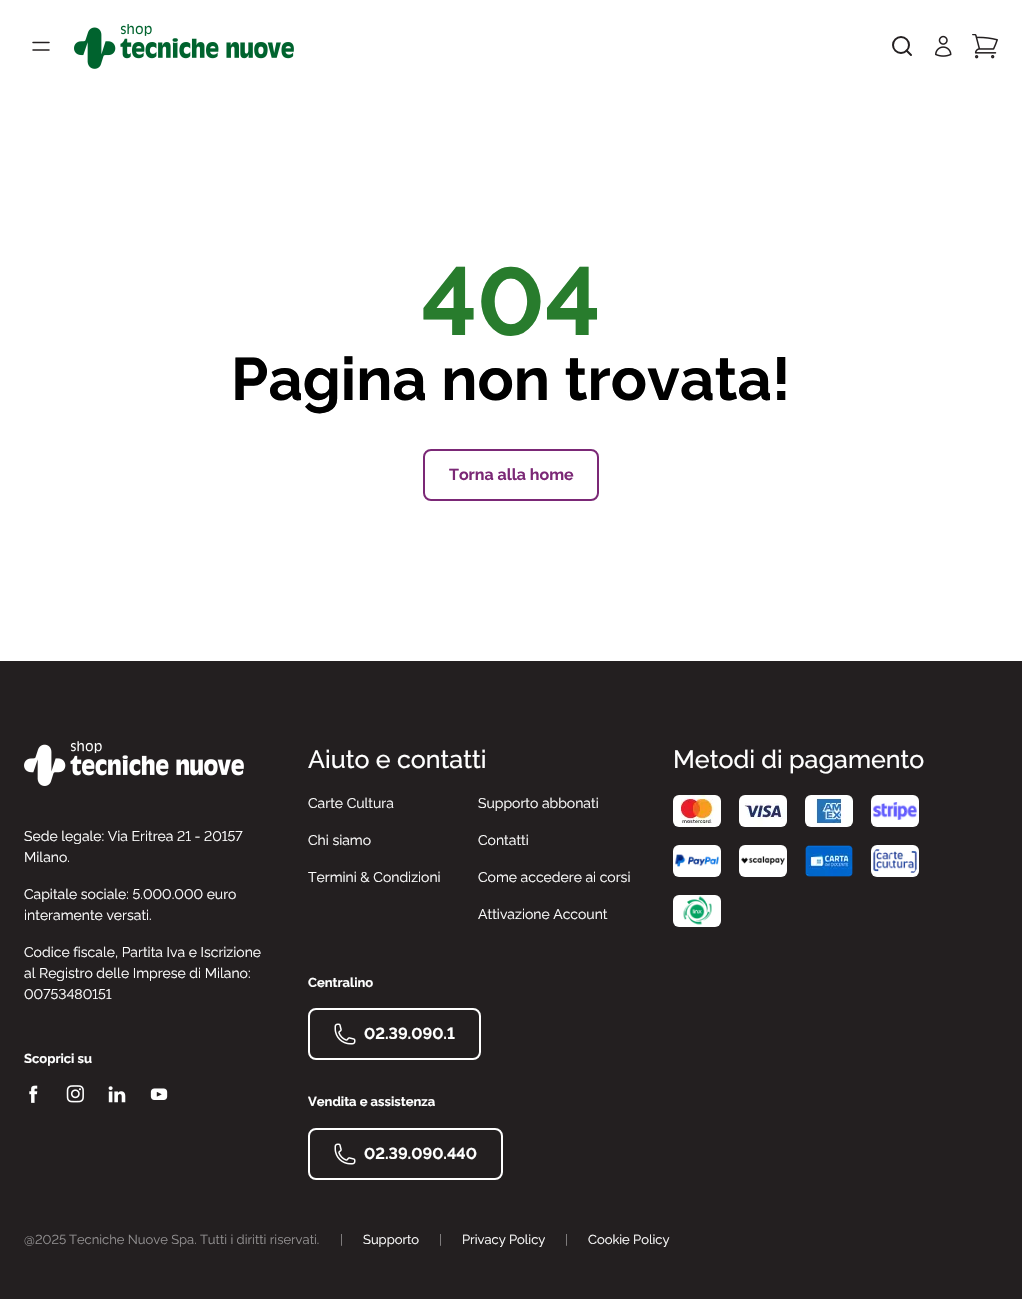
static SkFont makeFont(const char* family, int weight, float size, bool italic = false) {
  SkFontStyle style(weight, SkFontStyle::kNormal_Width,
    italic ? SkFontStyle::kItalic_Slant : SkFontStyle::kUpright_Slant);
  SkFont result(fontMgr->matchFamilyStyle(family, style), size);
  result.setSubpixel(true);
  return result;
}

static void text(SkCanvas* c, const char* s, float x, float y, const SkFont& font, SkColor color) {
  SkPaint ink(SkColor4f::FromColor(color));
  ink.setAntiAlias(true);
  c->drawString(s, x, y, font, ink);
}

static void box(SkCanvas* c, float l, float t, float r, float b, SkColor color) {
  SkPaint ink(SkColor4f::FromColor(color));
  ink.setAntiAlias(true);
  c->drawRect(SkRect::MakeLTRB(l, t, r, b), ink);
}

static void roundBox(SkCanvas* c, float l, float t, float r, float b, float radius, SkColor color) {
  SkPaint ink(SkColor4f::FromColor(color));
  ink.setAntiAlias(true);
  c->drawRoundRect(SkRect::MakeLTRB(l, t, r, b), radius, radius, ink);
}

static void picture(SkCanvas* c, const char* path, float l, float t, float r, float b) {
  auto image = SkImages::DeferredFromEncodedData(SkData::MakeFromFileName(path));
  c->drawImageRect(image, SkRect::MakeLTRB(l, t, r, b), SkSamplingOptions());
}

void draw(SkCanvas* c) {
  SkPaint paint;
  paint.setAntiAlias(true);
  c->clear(0xffffffff);
  paint.setStyle(SkPaint::kStroke_Style);
  paint.setStrokeWidth(1.5f);
  paint.setStrokeCap(SkPaint::kRound_Cap);
  paint.setColor(0xff231f20);
  c->drawPath(SkPathBuilder().moveTo(33, 42.5f).lineTo(49, 42.5f).moveTo(33, 50).lineTo(49, 50).detach(), paint);
  picture(c, "img_01.png", 74, 24, 294, 69);
  paint.setStrokeWidth(2);
  paint.setStrokeCap(SkPaint::kButt_Cap);
  c->drawCircle(901, 45, 8, paint);
  paint.setStrokeCap(SkPaint::kRound_Cap);
  paint.setStrokeJoin(SkPaint::kRound_Join);
  c->drawPath(SkPathBuilder().moveTo(911, 55).lineTo(906.5f, 50.5f).detach(), paint);
  picture(c, "img_02.png", 935, 35, 952, 57);
  picture(c, "img_03.png", 972, 34, 998, 59);
  SkFont face1 = makeFont("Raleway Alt", 700, 96);
  text(c, "404", 421, 335, face1, 0xff287c2d);
  SkFont face2 = makeFont("Raleway", 700, 60);
  text(c, "Pagina non trovata!", 231, 400, face2, 0xff000000);
  paint.setStrokeCap(SkPaint::kButt_Cap);
  paint.setStrokeJoin(SkPaint::kMiter_Join);
  paint.setColor(0xff7b2876);
  c->drawRoundRect(SkRect::MakeLTRB(424, 450, 598, 500), 7, 7, paint);
  SkFont face3 = makeFont("Raleway", 700, 16);
  text(c, "Torna alla home", 449, 480, face3, 0xff7b2876);
  box(c, 0, 661, 1022, 1299, 0xff231f20);
  SkFont face4 = makeFont("Raleway", 500, 25);
  text(c, "Aiuto e contatti", 308, 768, face4, 0xffffffff);
  SkFont face5 = makeFont("Raleway", 400, 14);
  text(c, "Carte Cultura", 308, 808, face5, 0xffffffff);
  text(c, "Chi siamo", 308, 845, face5, 0xffffffff);
  text(c, "Termini & Condizioni", 308, 882, face5, 0xffffffff);
  text(c, "Supporto abbonati", 478, 808, face5, 0xffffffff);
  text(c, "Contatti", 478, 845, face5, 0xffffffff);
  text(c, "Come accedere ai corsi", 478, 882, face5, 0xffffffff);
  text(c, "Attivazione Account", 478, 919, face5, 0xffffffff);
  SkFont face6 = makeFont("Raleway", 700, 13);
  text(c, "Centralino", 308, 987, face6, 0xffffffff);
  paint.setColor(0xffffffff);
  c->drawRoundRect(SkRect::MakeLTRB(309, 1009, 480, 1059), 7, 7, paint);
  picture(c, "img_04.png", 334, 1023, 356, 1045);
  SkFont face7 = makeFont("Raleway Alt", 700, 16);
  text(c, "02.39.090.1", 364, 1039, face7, 0xffffffff);
  text(c, "Vendita e assistenza", 308, 1106, face6, 0xffffffff);
  c->drawRoundRect(SkRect::MakeLTRB(309, 1129, 502, 1179), 7, 7, paint);
  picture(c, "img_04.png", 334, 1143, 356, 1165);
  text(c, "02.39.090.440", 364, 1159, face7, 0xffffffff);
  text(c, "Metodi di pagamento", 673, 768, face4, 0xffffffff);
  picture(c, "img_05.png", 673, 795, 721, 827);
  picture(c, "img_06.png", 739, 795, 787, 827);
  picture(c, "img_07.png", 805, 795, 853, 827);
  roundBox(c, 871, 795, 919, 827, 6, 0xffffffff);
  picture(c, "img_08.png", 873, 802, 917, 820);
  roundBox(c, 673, 845, 721, 877, 6, 0xffffffff);
  picture(c, "img_09.png", 675, 854, 719, 867);
  roundBox(c, 739, 845, 787, 877, 6, 0xffffffff);
  picture(c, "img_10.png", 741, 856, 785, 865);
  picture(c, "img_11.png", 805, 845, 853, 877);
  roundBox(c, 871, 845, 919, 877, 6, 0xffffffff);
  picture(c, "img_12.png", 873, 849, 917, 873);
  roundBox(c, 673, 895, 721, 927, 6, 0xffffffff);
  picture(c, "img_13.png", 683, 896, 712, 925);
  picture(c, "img_14.png", 24, 741, 244, 786);
  SkFont face8 = makeFont("Raleway Alt", 400, 14);
  text(c, "Sede legale: Via Eritrea 21 - 20157", 24, 841, face8, 0xffffffff);
  text(c, "Milano.", 24, 862, face5, 0xffffffff);
  text(c, "Capitale sociale: 5.000.000 euro", 24, 899, face8, 0xffffffff);
  text(c, "interamente versati.", 24, 920, face5, 0xffffffff);
  text(c, "Codice fiscale, Partita Iva e Iscrizione", 24, 957, face5, 0xffffffff);
  text(c, "al Registro delle Imprese di Milano:", 24, 978, face5, 0xffffffff);
  text(c, "00753480151", 24, 999, face8, 0xffffffff);
  text(c, "Scoprici su", 24, 1063, face6, 0xffffffff);
  picture(c, "img_15.png", 29, 1085, 38, 1103);
  picture(c, "img_16.png", 66, 1085, 84, 1103);
  picture(c, "img_17.png", 108, 1086, 126, 1103);
  picture(c, "img_18.png", 150, 1088, 168, 1100);
  SkFont face9 = makeFont("Raleway", 400, 13);
  text(c, "@", 24, 1244, face9, 0xff918f90);
  SkFont face10 = makeFont("Raleway Alt", 400, 13);
  text(c, "2025", 35, 1244, face10, 0xff918f90);
  text(c, "Tecniche Nuove Spa. Tutti i diritti riservati.", 69, 1244, face9, 0xff918f90);
  text(c, "|", 340, 1244, face9, 0xff918f90);
  text(c, "Supporto", 363, 1244, face9, 0xffffffff);
  text(c, "|", 439, 1244, face9, 0xff918f90);
  text(c, "Privacy Policy", 462, 1244, face9, 0xffffffff);
  text(c, "|", 565, 1244, face9, 0xff918f90);
  text(c, "Cookie Policy", 588, 1244, face9, 0xffffffff);
}
